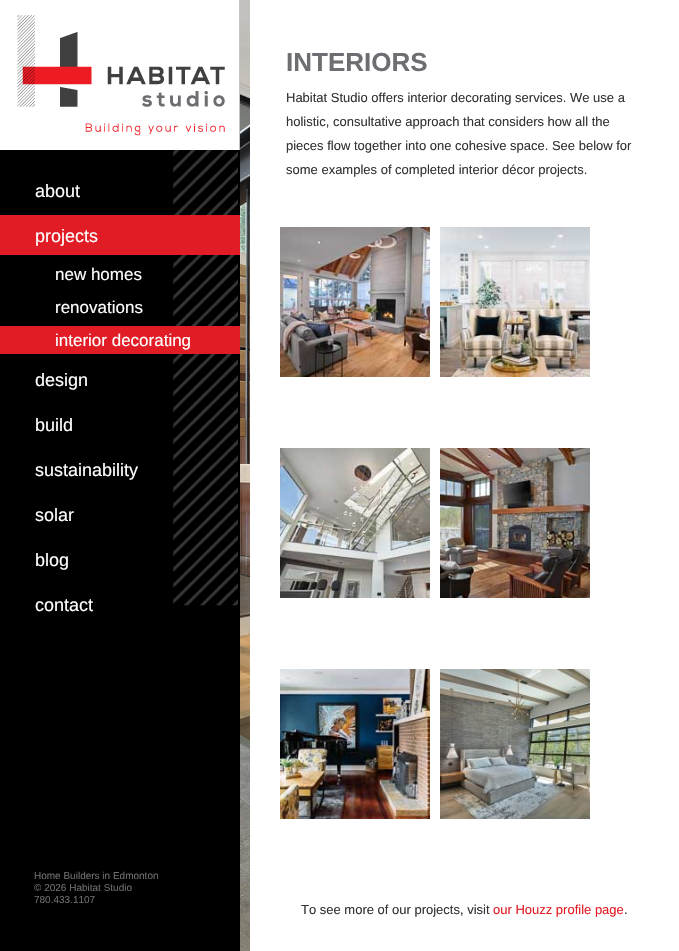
static SkFont makeFont(const char* family, int weight, float size, bool italic = false) {
  SkFontStyle style(weight, SkFontStyle::kNormal_Width,
    italic ? SkFontStyle::kItalic_Slant : SkFontStyle::kUpright_Slant);
  SkFont result(fontMgr->matchFamilyStyle(family, style), size);
  result.setSubpixel(true);
  return result;
}

static void text(SkCanvas* c, const char* s, float x, float y, const SkFont& font, SkColor color) {
  SkPaint ink(SkColor4f::FromColor(color));
  ink.setAntiAlias(true);
  c->drawString(s, x, y, font, ink);
}

static void box(SkCanvas* c, float l, float t, float r, float b, SkColor color) {
  SkPaint ink(SkColor4f::FromColor(color));
  ink.setAntiAlias(true);
  c->drawRect(SkRect::MakeLTRB(l, t, r, b), ink);
}

static void picture(SkCanvas* c, const char* path, float l, float t, float r, float b) {
  auto image = SkImages::DeferredFromEncodedData(SkData::MakeFromFileName(path));
  c->drawImageRect(image, SkRect::MakeLTRB(l, t, r, b), SkSamplingOptions());
}

void draw(SkCanvas* c) {
  SkPaint paint;
  paint.setAntiAlias(true);
  c->clear(0xffffffff);
  picture(c, "img_01.png", 240, 0, 250, 951);
  box(c, 0, 0, 240, 951, 0xff000000);
  picture(c, "img_02.png", 0, 0, 240, 150);
  picture(c, "img_03.png", 173, 150, 238, 606);
  SkFont face1 = makeFont("Liberation Sans", 400, 18);
  text(c, "about", 35, 197, face1, 0xffffffff);
  box(c, 0, 215, 240, 255, 0xffe21c24);
  text(c, "projects", 35, 242, face1, 0xffffffff);
  SkFont face2 = makeFont("Liberation Sans", 400, 17);
  text(c, "new homes", 55, 280, face2, 0xffffffff);
  text(c, "renovations", 55, 313, face2, 0xffffffff);
  box(c, 0, 326, 240, 354, 0xffe21c24);
  text(c, "interior decorating", 55, 346, face2, 0xffffffff);
  text(c, "design", 35, 386, face1, 0xffffffff);
  text(c, "build", 35, 431, face1, 0xffffffff);
  text(c, "sustainability", 35, 476, face1, 0xffffffff);
  text(c, "solar", 35, 521, face1, 0xffffffff);
  text(c, "blog", 35, 566, face1, 0xffffffff);
  text(c, "contact", 35, 611, face1, 0xffffffff);
  SkFont face3 = makeFont("Liberation Sans", 400, 10);
  text(c, "Home Builders in Edmonton", 34, 879, face3, 0xff6d6e71);
  text(c, "© 2026 Habitat Studio", 34, 891, face3, 0xff6d6e71);
  text(c, "780.433.1107", 34, 903, face3, 0xff6d6e71);
  SkFont face4 = makeFont("Liberation Sans", 700, 26);
  text(c, "INTERIORS", 286, 71, face4, 0xff6d6e71);
  SkFont face5 = makeFont("Liberation Sans", 400, 13);
  text(c, "Habitat Studio offers interior decorating services. We use a", 286, 102, face5, 0xff333333);
  text(c, "holistic, consultative approach that considers how all the", 286, 126, face5, 0xff333333);
  text(c, "pieces flow together into one cohesive space. See below for", 286, 150, face5, 0xff333333);
  text(c, "some examples of completed interior décor projects.", 286, 174, face5, 0xff333333);
  picture(c, "img_04.png", 280, 227, 430, 377);
  picture(c, "img_05.png", 440, 227, 590, 377);
  picture(c, "img_06.png", 280, 448, 430, 598);
  picture(c, "img_07.png", 440, 448, 590, 598);
  picture(c, "img_08.png", 280, 669, 430, 819);
  picture(c, "img_09.png", 440, 669, 590, 819);
  text(c, "To see more of our projects, visit", 301, 914, face5, 0xff333333);
  text(c, "our Houzz profile page", 493, 914, face5, 0xffe21c24);
  text(c, ".", 624, 914, face5, 0xff333333);
}
